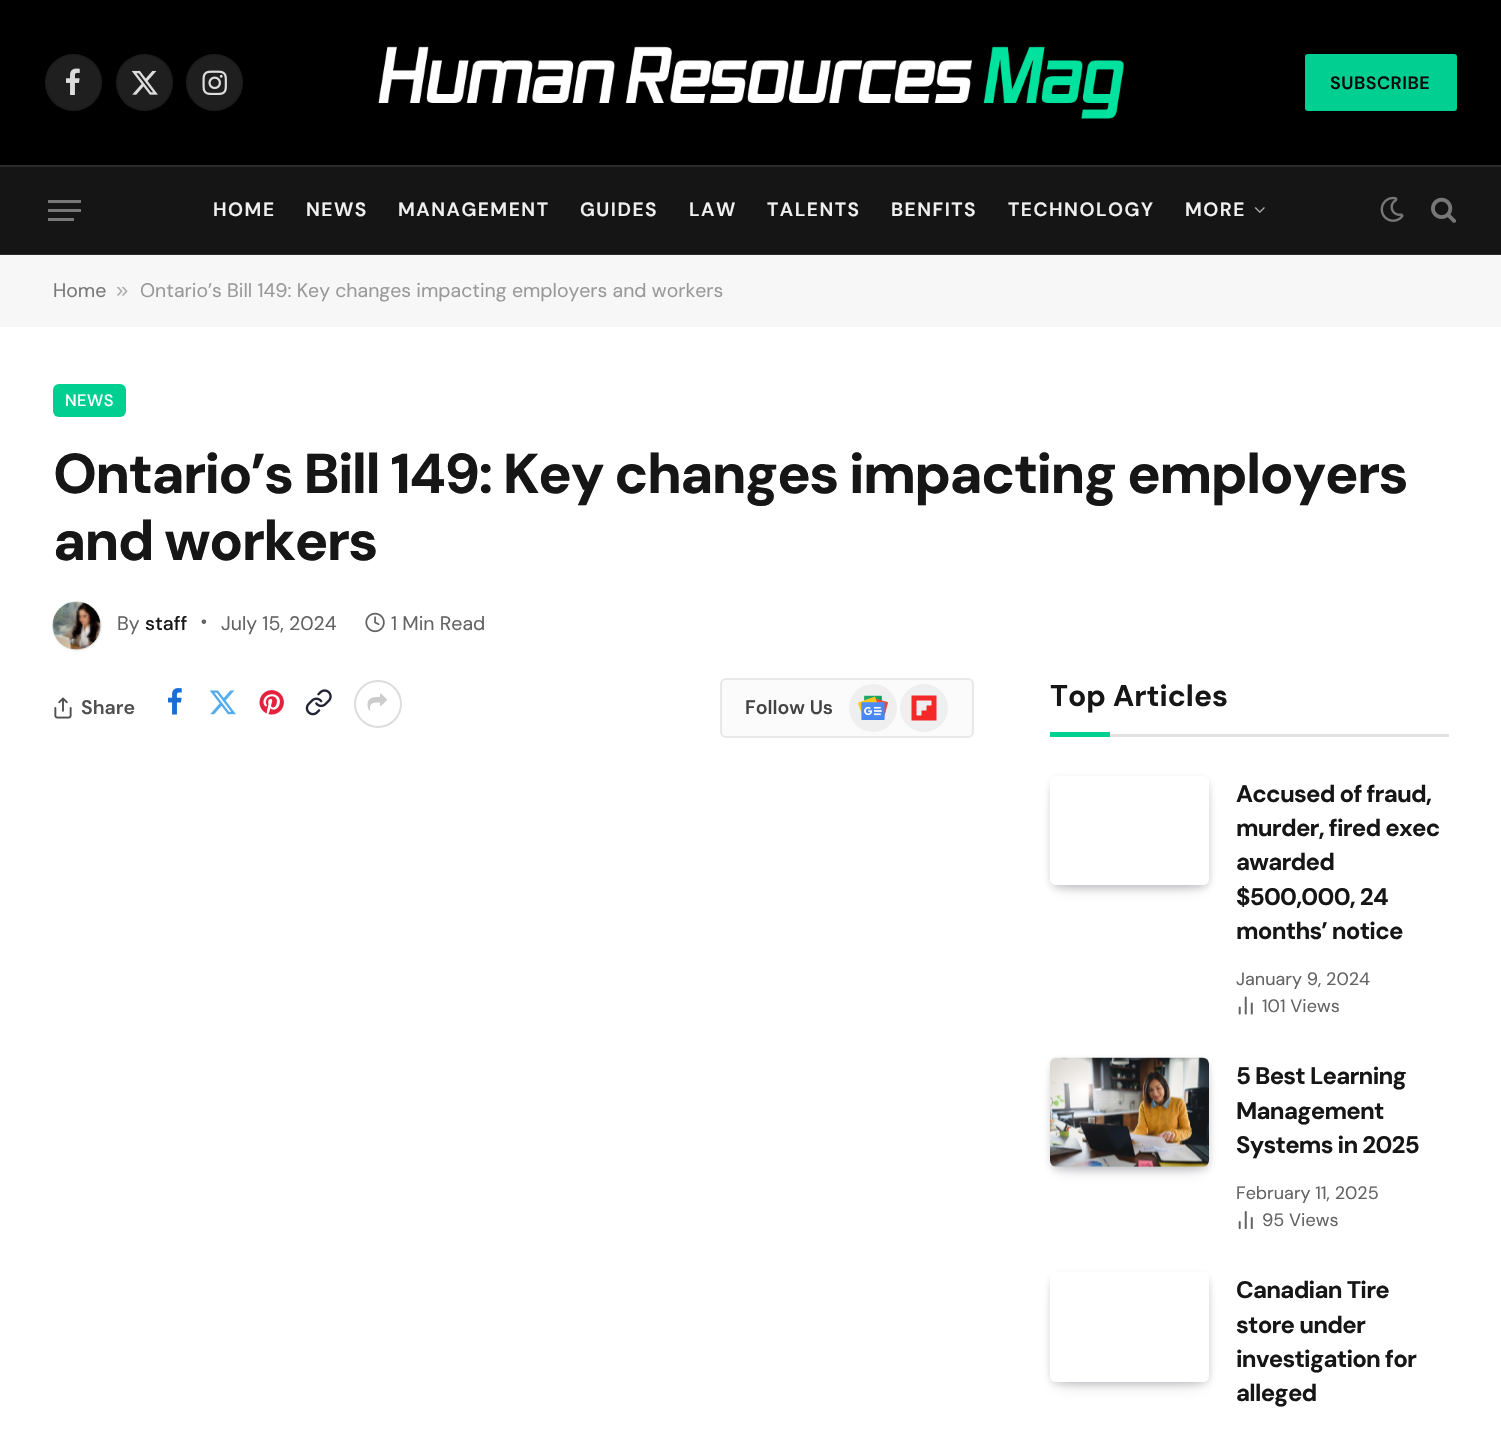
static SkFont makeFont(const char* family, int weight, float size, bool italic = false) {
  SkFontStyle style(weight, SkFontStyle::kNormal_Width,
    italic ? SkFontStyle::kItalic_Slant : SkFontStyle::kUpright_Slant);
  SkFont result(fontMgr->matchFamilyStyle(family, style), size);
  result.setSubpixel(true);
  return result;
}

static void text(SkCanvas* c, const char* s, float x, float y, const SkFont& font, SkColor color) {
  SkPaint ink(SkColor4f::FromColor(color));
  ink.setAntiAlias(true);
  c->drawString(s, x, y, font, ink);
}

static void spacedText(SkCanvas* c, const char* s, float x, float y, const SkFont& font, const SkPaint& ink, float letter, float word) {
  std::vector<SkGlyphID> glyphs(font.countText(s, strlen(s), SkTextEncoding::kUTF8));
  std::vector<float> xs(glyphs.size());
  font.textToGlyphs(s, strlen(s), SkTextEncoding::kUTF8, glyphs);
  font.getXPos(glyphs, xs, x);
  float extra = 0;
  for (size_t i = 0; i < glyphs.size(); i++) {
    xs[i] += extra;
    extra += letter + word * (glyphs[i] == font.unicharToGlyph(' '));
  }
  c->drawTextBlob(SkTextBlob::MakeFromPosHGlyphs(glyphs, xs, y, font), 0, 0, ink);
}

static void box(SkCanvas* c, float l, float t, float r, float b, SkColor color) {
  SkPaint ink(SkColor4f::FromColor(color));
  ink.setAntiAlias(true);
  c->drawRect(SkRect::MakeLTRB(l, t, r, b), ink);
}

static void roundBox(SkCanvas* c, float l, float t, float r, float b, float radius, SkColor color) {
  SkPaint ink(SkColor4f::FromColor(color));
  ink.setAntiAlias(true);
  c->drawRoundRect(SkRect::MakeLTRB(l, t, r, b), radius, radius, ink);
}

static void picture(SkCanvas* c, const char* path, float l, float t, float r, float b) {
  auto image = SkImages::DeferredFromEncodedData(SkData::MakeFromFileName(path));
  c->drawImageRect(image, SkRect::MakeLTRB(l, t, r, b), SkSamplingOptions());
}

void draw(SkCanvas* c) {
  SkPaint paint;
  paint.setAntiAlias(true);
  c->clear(0xffffffff);
  box(c, 0, 0, 1501, 165, 0xff000000);
  paint.setColor(0xff1f1f1f);
  c->drawCircle(73.5f, 82.5f, 28.5f, paint);
  paint.setStyle(SkPaint::kStroke_Style);
  paint.setStrokeWidth(2);
  paint.setColor(0x17000000);
  c->drawCircle(73.5f, 82.5f, 27.5f, paint);
  picture(c, "img_01.png", 66, 68, 80, 95);
  paint.setStyle(SkPaint::kFill_Style);
  paint.setColor(0xff1f1f1f);
  c->drawCircle(144.5f, 82.5f, 28.5f, paint);
  paint.setStyle(SkPaint::kStroke_Style);
  paint.setColor(0x17000000);
  c->drawCircle(144.5f, 82.5f, 27.5f, paint);
  picture(c, "img_02.png", 131, 70, 158, 95);
  paint.setStyle(SkPaint::kFill_Style);
  paint.setColor(0xff1f1f1f);
  c->drawCircle(214.5f, 82.5f, 28.5f, paint);
  paint.setStyle(SkPaint::kStroke_Style);
  paint.setColor(0x17000000);
  c->drawCircle(214.5f, 82.5f, 27.5f, paint);
  picture(c, "img_03.png", 202, 70, 227, 95);
  picture(c, "img_04.png", 378, 46, 1125, 119);
  roundBox(c, 1305, 54, 1457, 111, 3, 0xff00cf92);
  SkFont face1 = makeFont("DM Sans", 600, 18);
  paint.setStyle(SkPaint::kFill_Style);
  paint.setColor(0xff0a0a0a);
  spacedText(c, "SUBSCRIBE", 1330, 89, face1, paint, 0.5f, 0);
  box(c, 0, 167, 1501, 254, 0xff151515);
  box(c, 0, 254, 1501, 255, 0xff2c2c2c);
  box(c, 0, 165, 1501, 167, 0xff2c2c2c);
  box(c, 48, 218, 74, 221, 0xff777777);
  box(c, 48, 200, 81, 203, 0xff777777);
  box(c, 48, 209, 81, 212, 0xff777777);
  SkFont face2 = makeFont("DM Sans", 600, 19.25f);
  paint.setColor(0xfff0f0f0);
  spacedText(c, "HOME", 213, 216, face2, paint, 1.5f, 0);
  spacedText(c, "NEWS", 306, 216, face2, paint, 1.5f, 0);
  spacedText(c, "MANAGEMENT", 398, 216, face2, paint, 1.5f, 0);
  spacedText(c, "GUIDES", 580, 216, face2, paint, 1.5f, 0);
  spacedText(c, "LAW", 689, 216, face2, paint, 1.5f, 0);
  spacedText(c, "TALENTS", 767, 216, face2, paint, 1.5f, 0);
  spacedText(c, "BENFITS", 891, 216, face2, paint, 1.5f, 0);
  spacedText(c, "TECHNOLOGY", 1008, 216, face2, paint, 1.5f, 0);
  spacedText(c, "MORE", 1185, 216, face2, paint, 1.5f, 0);
  picture(c, "img_05.png", 1254, 207, 1265, 213);
  picture(c, "img_06.png", 1380, 196, 1404, 222);
  picture(c, "img_07.png", 1431, 197, 1456, 223);
  box(c, 0, 256, 1501, 327, 0xfff7f7f7);
  box(c, 0, 255, 1501, 256, 0xfff8f8f8);
  SkFont face3 = makeFont("DM Sans", 400, 19.5f);
  text(c, "Home", 53, 297, face3, 0xff777777);
  SkFont face4 = makeFont("Liberation Sans", 400, 22);
  text(c, "»", 116, 297, face4, 0xffacacac);
  text(c, "Ontario’s Bill 149: Key changes impacting employers and workers", 140, 297, face3, 0xff999999);
  roundBox(c, 53, 384, 126, 417, 6, 0xff00cf92);
  SkFont face5 = makeFont("DM Sans", 500, 16.5f);
  paint.setColor(0xffffffff);
  spacedText(c, "NEWS", 65, 406, face5, paint, 0.5f, 0);
  SkFont face6 = makeFont("DM Sans", 800, 56.2f);
  paint.setColor(0xff161616);
  spacedText(c, "Ontario’s Bill 149: Key changes impacting employers", 53, 493, face6, paint, -1.7f, 0);
  spacedText(c, "and workers", 53, 560, face6, paint, -1.7f, 0);
  paint.setColor(0x33000000);
  paint.setMaskFilter(SkMaskFilter::MakeBlur(kNormal_SkBlurStyle, 1));
  c->drawRoundRect(SkRect::MakeLTRB(53, 602, 101, 650), 24, 24, paint);
  paint.setMaskFilter(nullptr);
  picture(c, "img_08.png", 52, 601, 101, 650);
  text(c, "By", 117, 630, face3, 0xff636363);
  SkFont face7 = makeFont("DM Sans", 500, 19.5f);
  text(c, "staff", 145, 630, face7, 0xff161616);
  SkFont face8 = makeFont("DM Sans", 400, 39);
  text(c, "·", 200, 635, face8, 0xff636363);
  text(c, "July 15, 2024", 221, 630, face3, 0xff636363);
  picture(c, "img_09.png", 365, 612, 385, 633);
  text(c, "1 Min Read", 391, 630, face3, 0xff636363);
  picture(c, "img_10.png", 54, 697, 72, 719);
  SkFont face9 = makeFont("DM Sans", 600, 19.5f);
  text(c, "Share", 81, 714, face9, 0xff505050);
  picture(c, "img_11.png", 168, 688, 182, 715);
  picture(c, "img_12.png", 209, 690, 236, 715);
  picture(c, "img_13.png", 259, 690, 284, 715);
  picture(c, "img_14.png", 305, 689, 332, 716);
  paint.setStyle(SkPaint::kStroke_Style);
  paint.setColor(0xffdddddd);
  c->drawCircle(378, 704, 23, paint);
  picture(c, "img_15.png", 367, 693, 387, 711);
  paint.setStyle(SkPaint::kFill_Style);
  paint.setColor(0xfffbfbfb);
  c->drawRoundRect(SkRect::MakeLTRB(721, 679, 973, 737), 5, 5, paint);
  paint.setStyle(SkPaint::kStroke_Style);
  paint.setColor(0xffe8e8e8);
  c->drawRoundRect(SkRect::MakeLTRB(721, 679, 973, 737), 5, 5, paint);
  text(c, "Follow Us", 745, 714, face9, 0xff444444);
  paint.setStyle(SkPaint::kFill_Style);
  paint.setColor(0xffefefef);
  c->drawCircle(873, 708, 24, paint);
  picture(c, "img_16.png", 858, 695, 888, 720);
  c->drawCircle(924, 708, 24, paint);
  picture(c, "img_17.png", 911, 695, 937, 721);
  box(c, 1110, 734, 1449, 737, 0xffe2e2e2);
  SkFont face10 = makeFont("DM Sans", 700, 30);
  text(c, "Top Articles", 1050, 706, face10, 0xff161616);
  box(c, 1050, 732, 1110, 737, 0xff00cf92);
  c->save();
  c->clipPath(SkPathBuilder(SkPathFillType::kEvenOdd).moveTo(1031, 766).lineTo(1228, 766).lineTo(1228, 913).lineTo(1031, 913).close().moveTo(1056, 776).lineTo(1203, 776).cubicTo(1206.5f, 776, 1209, 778.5f, 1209, 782).lineTo(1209, 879).cubicTo(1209, 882.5f, 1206.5f, 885, 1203, 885).lineTo(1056, 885).cubicTo(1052.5f, 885, 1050, 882.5f, 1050, 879).lineTo(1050, 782).cubicTo(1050, 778.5f, 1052.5f, 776, 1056, 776).close().detach(), true);
  paint.setColor(0x33070a19);
  paint.setMaskFilter(SkMaskFilter::MakeBlur(kNormal_SkBlurStyle, 9));
  c->drawRect(SkRect::MakeLTRB(1059, 794, 1200, 885), paint);
  paint.setMaskFilter(nullptr);
  c->restore();
  c->save();
  c->clipPath(SkPathBuilder(SkPathFillType::kEvenOdd).moveTo(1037, 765).lineTo(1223, 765).lineTo(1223, 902).lineTo(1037, 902).close().moveTo(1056, 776).lineTo(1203, 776).cubicTo(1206.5f, 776, 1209, 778.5f, 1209, 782).lineTo(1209, 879).cubicTo(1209, 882.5f, 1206.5f, 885, 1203, 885).lineTo(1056, 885).cubicTo(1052.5f, 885, 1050, 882.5f, 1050, 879).lineTo(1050, 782).cubicTo(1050, 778.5f, 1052.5f, 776, 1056, 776).close().detach(), true);
  paint.setMaskFilter(SkMaskFilter::MakeBlur(kNormal_SkBlurStyle, 4.5f));
  c->drawRoundRect(SkRect::MakeLTRB(1052, 780, 1208, 887), 5, 5, paint);
  paint.setMaskFilter(nullptr);
  c->restore();
  SkFont face11 = makeFont("DM Sans", 700, 24);
  paint.setColor(0xff161616);
  spacedText(c, "Accused of fraud,", 1236, 802, face11, paint, -0.75f, 0);
  spacedText(c, "murder, fired exec", 1236, 836, face11, paint, -0.75f, 0);
  spacedText(c, "awarded", 1236, 870, face11, paint, -0.75f, 0);
  spacedText(c, "$500,000, 24", 1236, 905, face11, paint, -0.75f, 0);
  spacedText(c, "months’ notice", 1236, 939, face11, paint, -0.75f, 0);
  SkFont face12 = makeFont("DM Sans", 400, 18);
  text(c, "January 9, 2024", 1236, 985, face12, 0xff636363);
  picture(c, "img_18.png", 1238, 996, 1253, 1015);
  text(c, "101 Views", 1262, 1012, face12, 0xff636363);
  paint.setColor(0x33070a19);
  paint.setMaskFilter(SkMaskFilter::MakeBlur(kNormal_SkBlurStyle, 9));
  c->drawRect(SkRect::MakeLTRB(1059, 1076, 1200, 1167), paint);
  paint.setMaskFilter(nullptr);
  paint.setMaskFilter(SkMaskFilter::MakeBlur(kNormal_SkBlurStyle, 4.5f));
  c->drawRoundRect(SkRect::MakeLTRB(1052, 1062, 1208, 1169), 5, 5, paint);
  paint.setMaskFilter(nullptr);
  picture(c, "img_19.png", 1050, 1057, 1209, 1167);
  paint.setColor(0xff161616);
  spacedText(c, "5 Best Learning", 1236, 1084, face11, paint, -0.75f, 0);
  spacedText(c, "Management", 1236, 1119, face11, paint, -0.75f, 0);
  spacedText(c, "Systems in 2025", 1236, 1153, face11, paint, -0.75f, 0);
  text(c, "February 11, 2025", 1236, 1199, face12, 0xff636363);
  picture(c, "img_20.png", 1238, 1211, 1253, 1230);
  text(c, "95 Views", 1262, 1226, face12, 0xff636363);
  c->save();
  c->clipPath(SkPathBuilder(SkPathFillType::kEvenOdd).moveTo(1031, 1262).lineTo(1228, 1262).lineTo(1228, 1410).lineTo(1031, 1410).close().moveTo(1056, 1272).lineTo(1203, 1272).cubicTo(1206.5f, 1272, 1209, 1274.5f, 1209, 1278).lineTo(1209, 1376).cubicTo(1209, 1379.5f, 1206.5f, 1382, 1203, 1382).lineTo(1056, 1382).cubicTo(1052.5f, 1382, 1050, 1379.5f, 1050, 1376).lineTo(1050, 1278).cubicTo(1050, 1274.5f, 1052.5f, 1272, 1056, 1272).close().detach(), true);
  paint.setColor(0x33070a19);
  paint.setMaskFilter(SkMaskFilter::MakeBlur(kNormal_SkBlurStyle, 9));
  c->drawRect(SkRect::MakeLTRB(1059, 1290, 1200, 1382), paint);
  paint.setMaskFilter(nullptr);
  c->restore();
  c->save();
  c->clipPath(SkPathBuilder(SkPathFillType::kEvenOdd).moveTo(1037, 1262).lineTo(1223, 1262).lineTo(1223, 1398).lineTo(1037, 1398).close().moveTo(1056, 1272).lineTo(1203, 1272).cubicTo(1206.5f, 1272, 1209, 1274.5f, 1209, 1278).lineTo(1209, 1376).cubicTo(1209, 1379.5f, 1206.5f, 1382, 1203, 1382).lineTo(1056, 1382).cubicTo(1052.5f, 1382, 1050, 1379.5f, 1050, 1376).lineTo(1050, 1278).cubicTo(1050, 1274.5f, 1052.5f, 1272, 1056, 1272).close().detach(), true);
  paint.setMaskFilter(SkMaskFilter::MakeBlur(kNormal_SkBlurStyle, 4.5f));
  c->drawRoundRect(SkRect::MakeLTRB(1052, 1277, 1208, 1383), 5, 5, paint);
  paint.setMaskFilter(nullptr);
  c->restore();
  paint.setColor(0xff161616);
  spacedText(c, "Canadian Tire", 1236, 1298, face11, paint, -0.75f, 0);
  spacedText(c, "store under", 1236, 1333, face11, paint, -0.75f, 0);
  spacedText(c, "investigation for", 1236, 1367, face11, paint, -0.75f, 0);
  spacedText(c, "alleged", 1236, 1401, face11, paint, -0.75f, 0);
}
